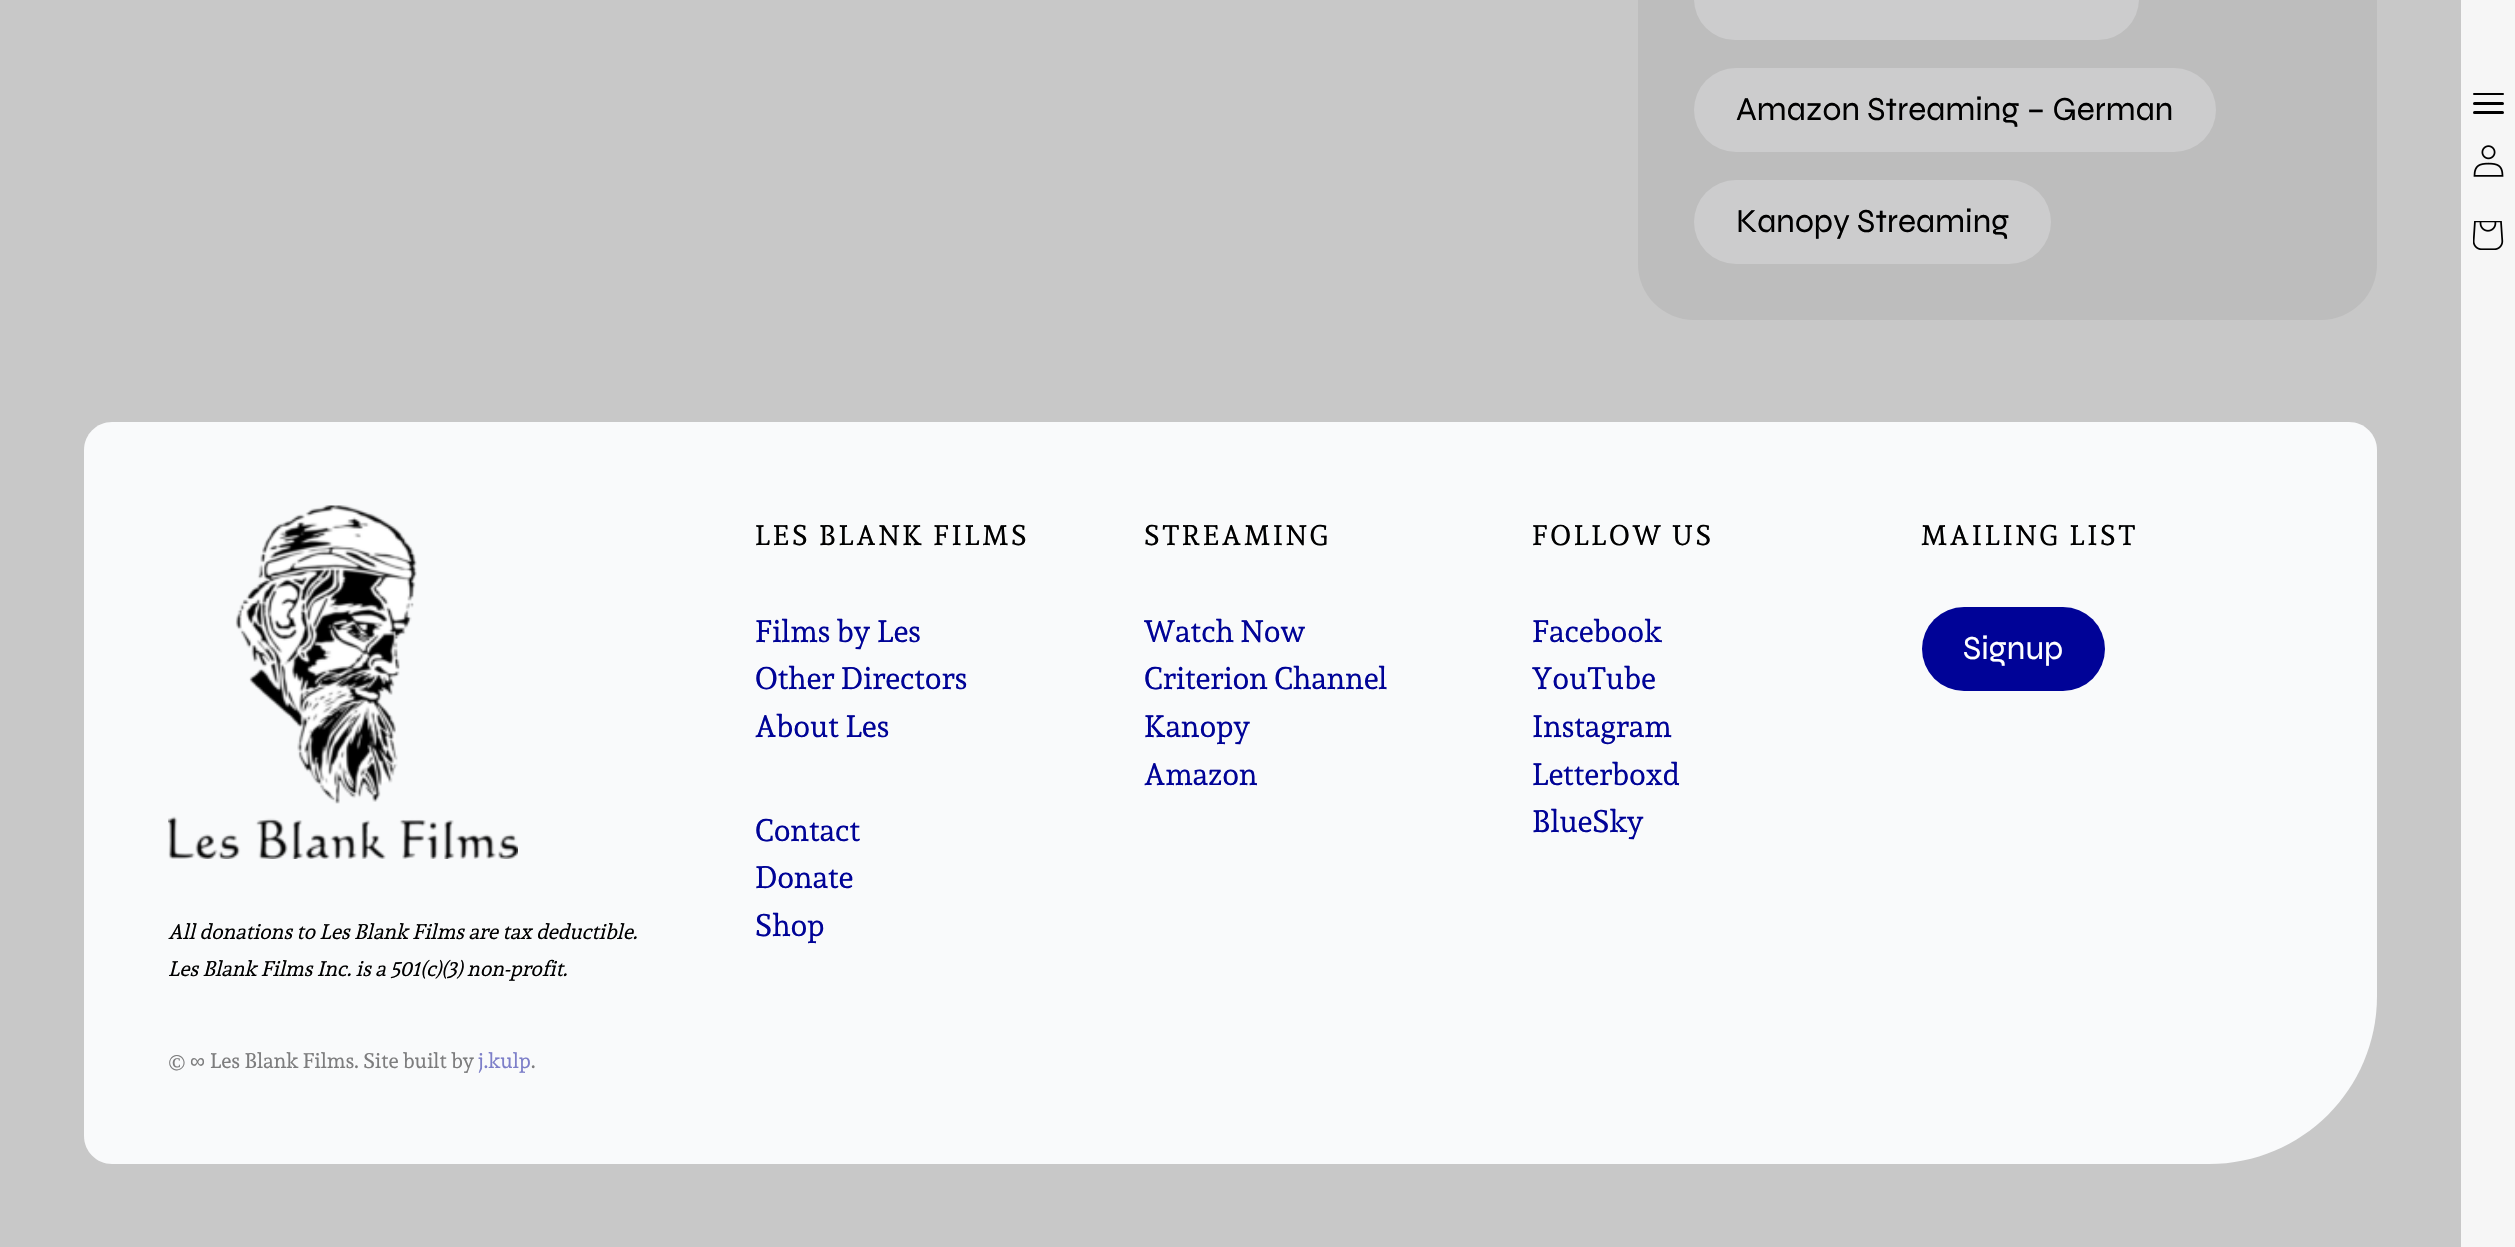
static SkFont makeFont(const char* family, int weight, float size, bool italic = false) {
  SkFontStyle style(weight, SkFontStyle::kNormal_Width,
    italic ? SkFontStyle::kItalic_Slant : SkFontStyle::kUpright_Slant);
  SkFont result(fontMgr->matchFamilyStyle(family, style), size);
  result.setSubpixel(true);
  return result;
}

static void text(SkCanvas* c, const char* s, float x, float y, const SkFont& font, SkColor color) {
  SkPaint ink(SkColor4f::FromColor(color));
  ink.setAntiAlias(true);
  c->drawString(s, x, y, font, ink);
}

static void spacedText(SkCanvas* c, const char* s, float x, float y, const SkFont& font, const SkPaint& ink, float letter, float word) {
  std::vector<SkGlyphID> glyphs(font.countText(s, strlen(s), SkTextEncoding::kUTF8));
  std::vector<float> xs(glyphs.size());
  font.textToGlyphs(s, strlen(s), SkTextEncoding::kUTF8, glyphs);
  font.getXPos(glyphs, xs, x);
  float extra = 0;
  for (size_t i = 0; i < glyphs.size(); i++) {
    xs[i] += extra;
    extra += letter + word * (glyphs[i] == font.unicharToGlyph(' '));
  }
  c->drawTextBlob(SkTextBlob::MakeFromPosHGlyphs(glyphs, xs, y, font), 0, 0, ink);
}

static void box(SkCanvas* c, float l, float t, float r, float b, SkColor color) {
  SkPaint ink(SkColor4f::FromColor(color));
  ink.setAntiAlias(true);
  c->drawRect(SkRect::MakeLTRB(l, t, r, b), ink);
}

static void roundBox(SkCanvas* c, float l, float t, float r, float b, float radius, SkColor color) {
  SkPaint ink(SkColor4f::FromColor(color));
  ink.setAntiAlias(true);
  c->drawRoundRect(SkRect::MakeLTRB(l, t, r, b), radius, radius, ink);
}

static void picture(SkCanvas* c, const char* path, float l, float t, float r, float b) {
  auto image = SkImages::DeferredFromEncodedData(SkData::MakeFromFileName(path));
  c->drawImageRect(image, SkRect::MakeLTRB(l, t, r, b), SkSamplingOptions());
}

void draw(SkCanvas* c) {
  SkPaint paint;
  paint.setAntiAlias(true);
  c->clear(0xffc8c8c8);
  roundBox(c, 1638, -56, 2377, 320, 56, 0xffbdbdbd);
  roundBox(c, 1694, -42, 2139, 40, 42, 0xffcccccd);
  roundBox(c, 1694, 68, 2216, 152, 42, 0xffcccccd);
  SkFont face1 = makeFont("Syne", 400, 33.6f);
  text(c, "Amazon Streaming – German", 1736, 120, face1, 0xff000000);
  roundBox(c, 1694, 180, 2051, 264, 42, 0xffcccccd);
  text(c, "Kanopy Streaming", 1736, 232, face1, 0xff000000);
  box(c, 2461, 0, 2515, 1247, 0xfff6f6f6);
  roundBox(c, 2473, 102, 2504, 105, 1.5f, 0xff000000);
  roundBox(c, 2473, 93, 2504, 95, 1, 0xff000000);
  roundBox(c, 2473, 111, 2504, 114, 1.5f, 0xff000000);
  picture(c, "img_01.png", 2473, 145, 2504, 177);
  picture(c, "img_02.png", 2473, 221, 2504, 250);
  paint.setColor(0xfff9fafb);
  c->drawPath(SkPathBuilder().moveTo(112, 422).lineTo(2349, 422).cubicTo(2364.5f, 422, 2377, 434.5f, 2377, 450).lineTo(2377, 996).cubicTo(2377, 1089, 2302, 1164, 2209, 1164).lineTo(112, 1164).cubicTo(96.5f, 1164, 84, 1151.5f, 84, 1136).lineTo(84, 450).cubicTo(84, 434.5f, 96.5f, 422, 112, 422).close().detach(), paint);
  SkFont face2 = makeFont("Sura", 400, 28);
  paint.setColor(0xff000000);
  spacedText(c, "LES BLANK FILMS", 755, 545, face2, paint, 2.75f, 0);
  SkFont face3 = makeFont("Sura", 400, 30.75f);
  text(c, "Films by Les", 755, 642, face3, 0xff000397);
  text(c, "Other Directors", 755, 689, face3, 0xff000397);
  text(c, "About Les", 755, 737, face3, 0xff000397);
  text(c, "Contact", 755, 841, face3, 0xff000397);
  text(c, "Donate", 755, 888, face3, 0xff000397);
  text(c, "Shop", 755, 936, face3, 0xff000397);
  spacedText(c, "STREAMING", 1144, 545, face2, paint, 2.75f, 0);
  text(c, "Watch Now", 1144, 642, face3, 0xff000397);
  text(c, "Criterion Channel", 1144, 689, face3, 0xff000397);
  text(c, "Kanopy", 1144, 737, face3, 0xff000397);
  text(c, "Amazon", 1144, 785, face3, 0xff000397);
  spacedText(c, "FOLLOW US", 1532, 545, face2, paint, 2.75f, 0);
  text(c, "Facebook", 1532, 642, face3, 0xff000397);
  text(c, "YouTube", 1532, 689, face3, 0xff000397);
  text(c, "Instagram", 1532, 737, face3, 0xff000397);
  text(c, "Letterboxd", 1532, 785, face3, 0xff000397);
  text(c, "BlueSky", 1532, 832, face3, 0xff000397);
  spacedText(c, "MAILING LIST", 1921, 545, face2, paint, 2.75f, 0);
  roundBox(c, 1922, 607, 2105, 691, 42, 0xff000397);
  text(c, "Signup", 1963, 659, face1, 0xffffffff);
  picture(c, "img_03.png", 168, 505, 518, 859);
  SkFont face4 = makeFont("Sura", 400, 21, true);
  text(c, "All donations to Les Blank Films are tax deductible.", 168, 939, face4, 0xff000000);
  text(c, "Les Blank Films Inc. is a 501(c)(3) non-profit.", 168, 976, face4, 0xff000000);
  SkFont face5 = makeFont("Sura", 400, 21);
  text(c, "©", 168, 1068, face5, 0xff7d7d7e);
  SkFont face6 = makeFont("Liberation Sans", 400, 21);
  text(c, "∞", 190, 1068, face6, 0xff7d7d7e);
  text(c, "Les Blank Films. Site built by", 210, 1068, face5, 0xff7d7d7e);
  text(c, "j.kulp", 478, 1068, face5, 0xff7d7fc9);
  text(c, ".", 531, 1068, face5, 0xff7d7d7e);
}
